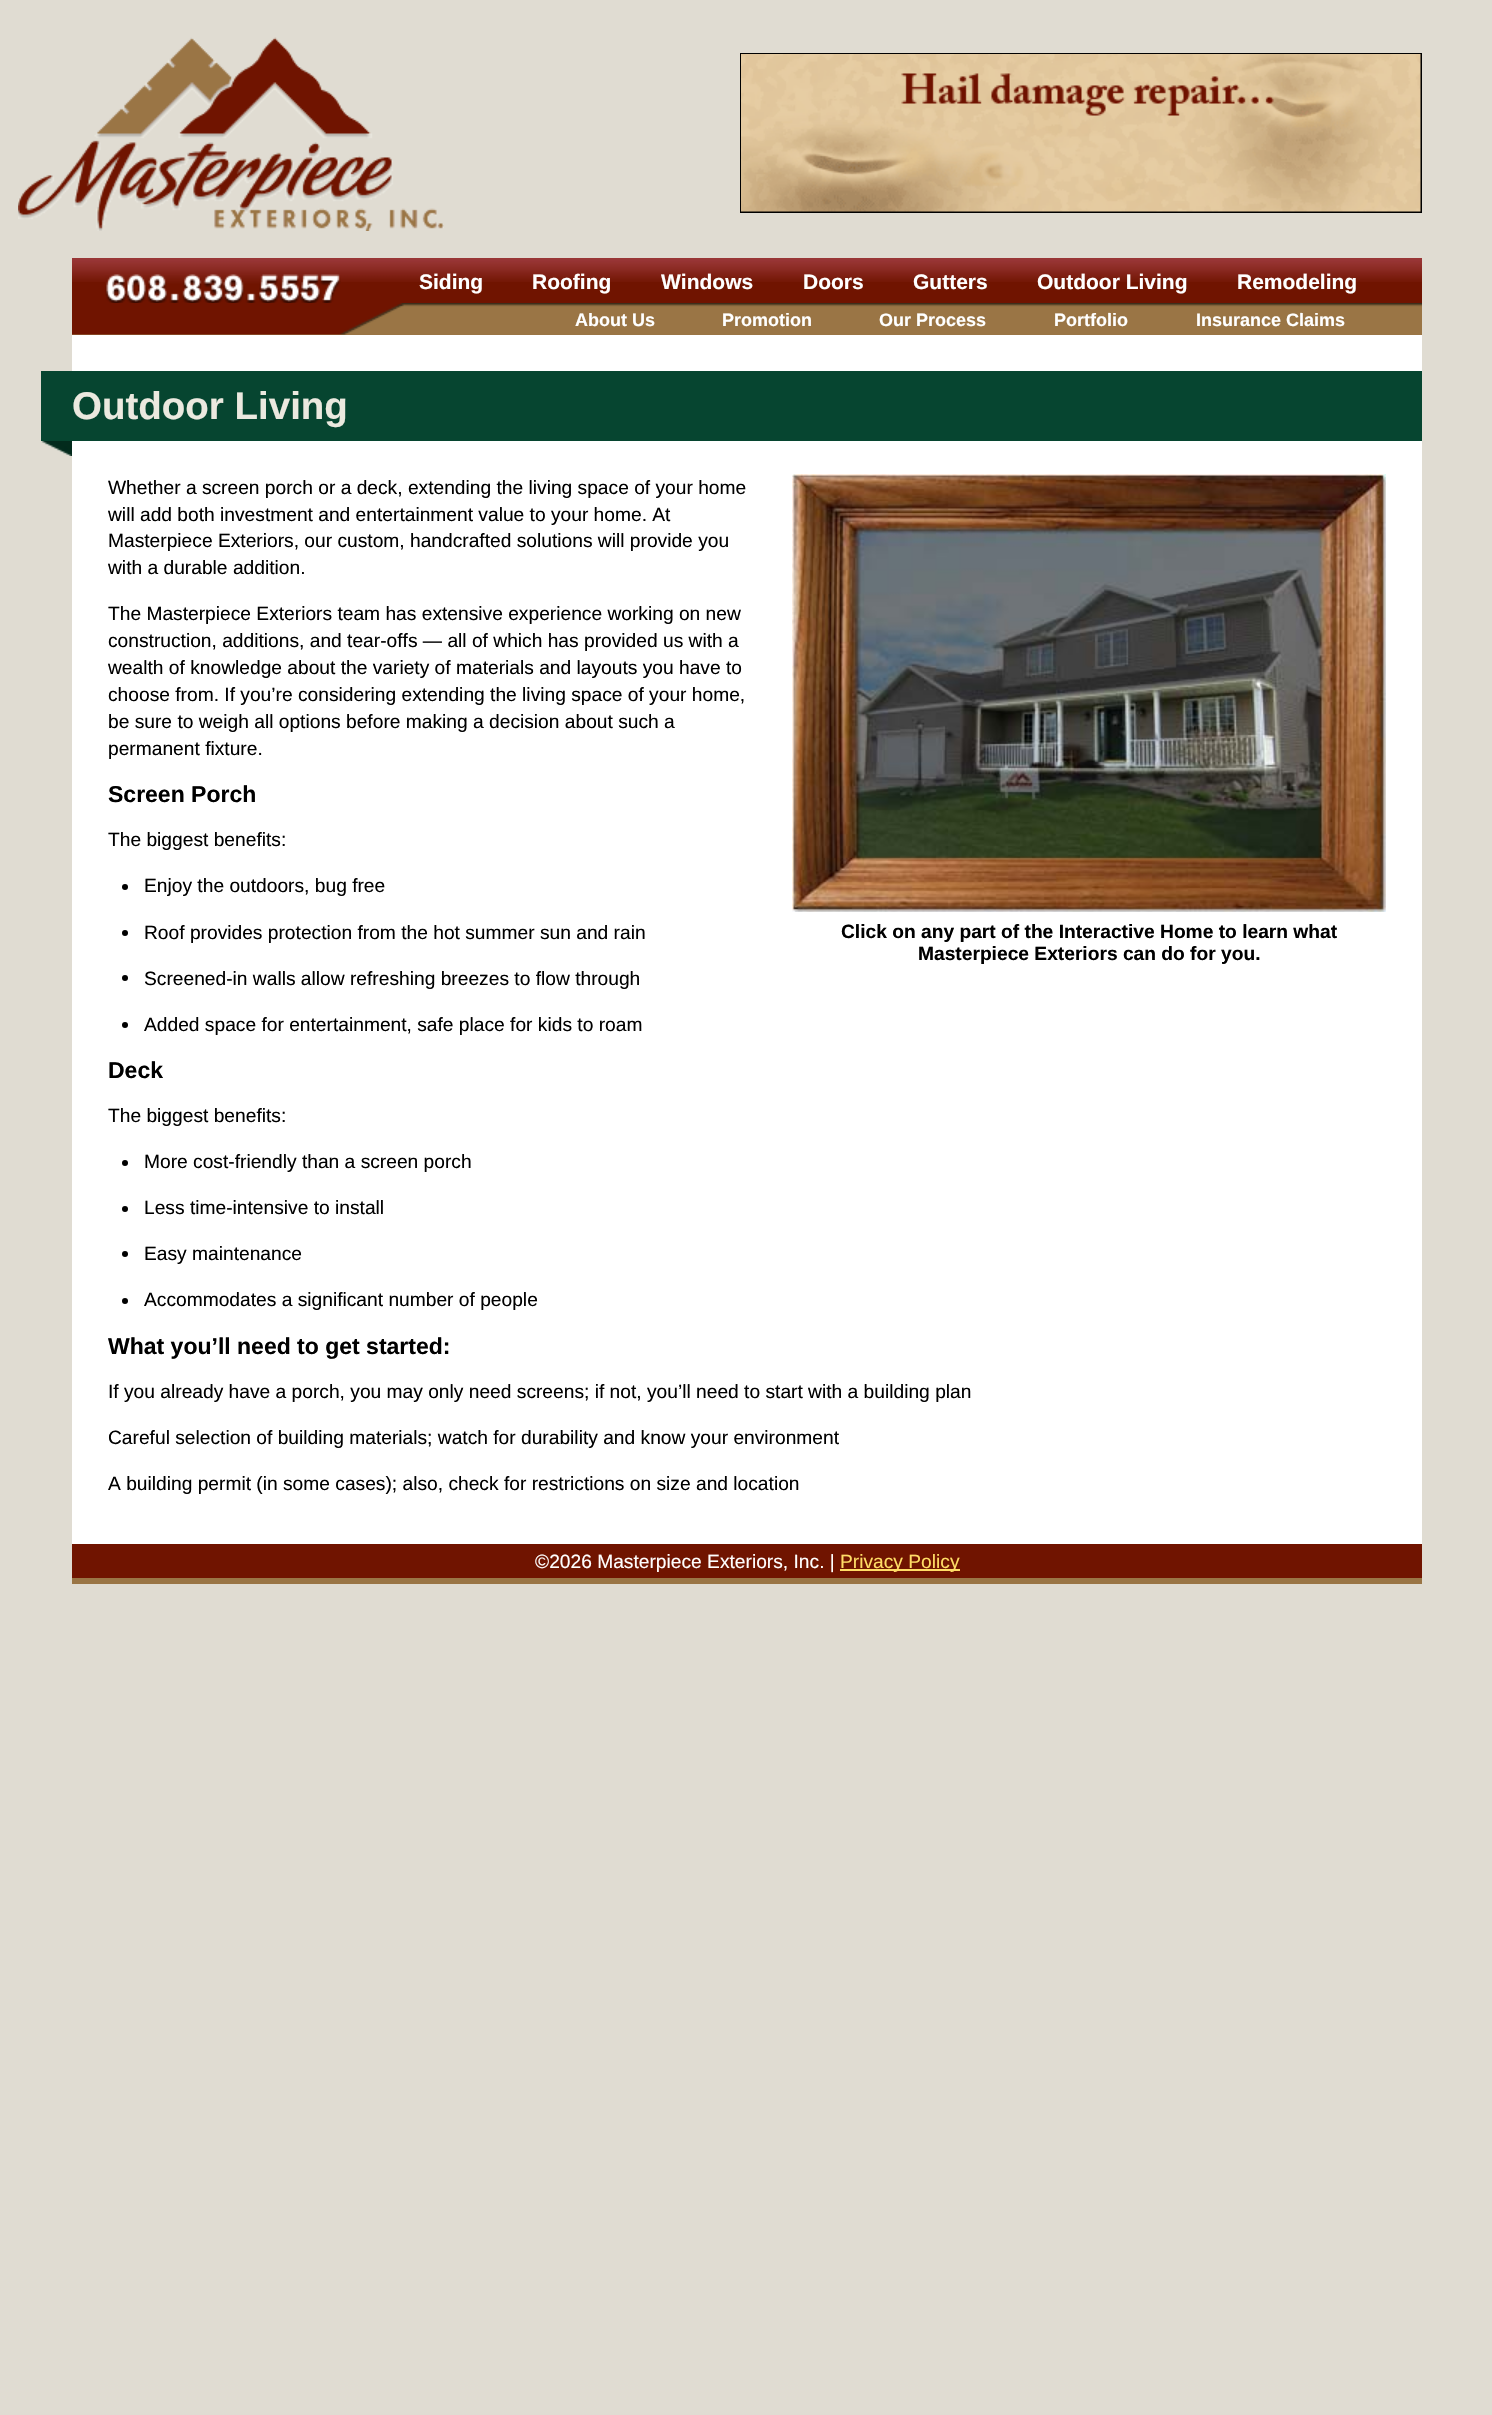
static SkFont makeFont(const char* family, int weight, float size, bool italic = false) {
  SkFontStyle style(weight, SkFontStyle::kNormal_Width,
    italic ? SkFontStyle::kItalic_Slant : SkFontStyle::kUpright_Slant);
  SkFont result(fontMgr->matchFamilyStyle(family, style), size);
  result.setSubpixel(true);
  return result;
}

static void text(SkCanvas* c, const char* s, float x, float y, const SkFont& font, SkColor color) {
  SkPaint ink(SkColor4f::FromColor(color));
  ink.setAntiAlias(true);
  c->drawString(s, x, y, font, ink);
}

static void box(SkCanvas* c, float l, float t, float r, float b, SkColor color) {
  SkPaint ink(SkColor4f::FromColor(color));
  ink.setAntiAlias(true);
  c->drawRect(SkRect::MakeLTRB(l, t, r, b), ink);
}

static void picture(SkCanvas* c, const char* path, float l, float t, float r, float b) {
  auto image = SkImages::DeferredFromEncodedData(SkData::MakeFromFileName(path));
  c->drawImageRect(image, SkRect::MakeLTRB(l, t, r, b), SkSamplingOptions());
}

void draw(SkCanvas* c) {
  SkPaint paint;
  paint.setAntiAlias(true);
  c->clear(0xffe0dcd2);
  picture(c, "img_01.png", 18, 37, 444, 231);
  paint.setStyle(SkPaint::kStroke_Style);
  paint.setStrokeWidth(2);
  paint.setColor(0xff000000);
  c->drawRect(SkRect::MakeLTRB(741, 54, 1421, 212), paint);
  picture(c, "img_02.png", 741, 54, 1421, 212);
  box(c, 72, 282, 1422, 303, 0xff701400);
  picture(c, "img_03.png", 72, 258, 1422, 282);
  picture(c, "img_04.png", 105, 274, 341, 303);
  SkFont face1 = makeFont("Liberation Sans", 700, 21);
  text(c, "Siding", 419, 289, face1, 0xffffffff);
  text(c, "Roofing", 532, 289, face1, 0xffffffff);
  text(c, "Windows", 661, 289, face1, 0xffffffff);
  text(c, "Doors", 803, 289, face1, 0xffffffff);
  text(c, "Gutters", 913, 289, face1, 0xffffffff);
  text(c, "Outdoor Living", 1037, 289, face1, 0xffffffff);
  text(c, "Remodeling", 1237, 289, face1, 0xffffffff);
  box(c, 72, 307, 1422, 335, 0xff9a7545);
  picture(c, "img_05.png", 403, 303, 1422, 307);
  picture(c, "img_06.png", 72, 303, 404, 335);
  SkFont face2 = makeFont("Liberation Sans", 700, 18);
  text(c, "About Us", 575, 326, face2, 0xffffffff);
  text(c, "Promotion", 722, 326, face2, 0xffffffff);
  text(c, "Our Process", 879, 326, face2, 0xffffffff);
  text(c, "Portfolio", 1054, 326, face2, 0xffffffff);
  text(c, "Insurance Claims", 1196, 326, face2, 0xffffffff);
  box(c, 72, 335, 1422, 1544, 0xffffffff);
  picture(c, "img_07.png", 41, 441, 72, 456);
  box(c, 41, 371, 1422, 441, 0xff064530);
  SkFont face3 = makeFont("Liberation Sans", 700, 38.5f);
  text(c, "Outdoor Living", 72, 419, face3, 0xffebe9df);
  SkFont face4 = makeFont("Liberation Sans", 400, 19.2f);
  text(c, "Whether a screen porch or a deck, extending the living space of your home", 108, 494, face4, 0xff000000);
  text(c, "will add both investment and entertainment value to your home. At", 108, 521, face4, 0xff000000);
  text(c, "Masterpiece Exteriors, our custom, handcrafted solutions will provide you", 108, 547, face4, 0xff000000);
  text(c, "with a durable addition.", 108, 574, face4, 0xff000000);
  text(c, "The Masterpiece Exteriors team has extensive experience working on new", 108, 620, face4, 0xff000000);
  text(c, "construction, additions, and tear-offs — all of which has provided us with a", 108, 647, face4, 0xff000000);
  text(c, "wealth of knowledge about the variety of materials and layouts you have to", 108, 674, face4, 0xff000000);
  text(c, "choose from. If you’re considering extending the living space of your home,", 108, 701, face4, 0xff000000);
  text(c, "be sure to weigh all options before making a decision about such a", 108, 728, face4, 0xff000000);
  text(c, "permanent fixture.", 108, 755, face4, 0xff000000);
  SkFont face5 = makeFont("Liberation Sans", 700, 23);
  text(c, "Screen Porch", 108, 802, face5, 0xff000000);
  text(c, "The biggest benefits:", 108, 846, face4, 0xff000000);
  paint.setStyle(SkPaint::kFill_Style);
  c->drawCircle(125, 887, 3, paint);
  text(c, "Enjoy the outdoors, bug free", 144, 892, face4, 0xff000000);
  c->drawCircle(125, 933, 3, paint);
  text(c, "Roof provides protection from the hot summer sun and rain", 144, 939, face4, 0xff000000);
  c->drawCircle(125, 978, 3, paint);
  text(c, "Screened-in walls allow refreshing breezes to flow through", 144, 985, face4, 0xff000000);
  c->drawCircle(125, 1025, 3, paint);
  text(c, "Added space for entertainment, safe place for kids to roam", 144, 1031, face4, 0xff000000);
  text(c, "Deck", 108, 1078, face5, 0xff000000);
  text(c, "The biggest benefits:", 108, 1122, face4, 0xff000000);
  c->drawCircle(125, 1163, 3, paint);
  text(c, "More cost-friendly than a screen porch", 144, 1168, face4, 0xff000000);
  c->drawCircle(125, 1209, 3, paint);
  text(c, "Less time-intensive to install", 144, 1214, face4, 0xff000000);
  c->drawCircle(125, 1254, 3, paint);
  text(c, "Easy maintenance", 144, 1260, face4, 0xff000000);
  c->drawCircle(125, 1301, 3, paint);
  text(c, "Accommodates a significant number of people", 144, 1306, face4, 0xff000000);
  text(c, "What you’ll need to get started:", 108, 1354, face5, 0xff000000);
  text(c, "If you already have a porch, you may only need screens; if not, you’ll need to start with a building plan", 108, 1398, face4, 0xff000000);
  text(c, "Careful selection of building materials; watch for durability and know your environment", 108, 1444, face4, 0xff000000);
  text(c, "A building permit (in some cases); also, check for restrictions on size and location", 108, 1490, face4, 0xff000000);
  picture(c, "img_08.png", 792, 474, 1386, 912);
  SkFont face6 = makeFont("Liberation Sans", 700, 19.2f);
  text(c, "Click on any part of the Interactive Home to learn what", 841, 938, face6, 0xff000000);
  text(c, "Masterpiece Exteriors can do for you.", 918, 960, face6, 0xff000000);
  box(c, 72, 1544, 1422, 1578, 0xff701400);
  box(c, 72, 1578, 1422, 1584, 0xff9a7545);
  text(c, "©2026 Masterpiece Exteriors, Inc. |", 535, 1568, face4, 0xffffffff);
  box(c, 840, 1569, 960, 1571, 0xffffdd66);
  text(c, "Privacy Policy", 840, 1568, face4, 0xffffdd66);
}
